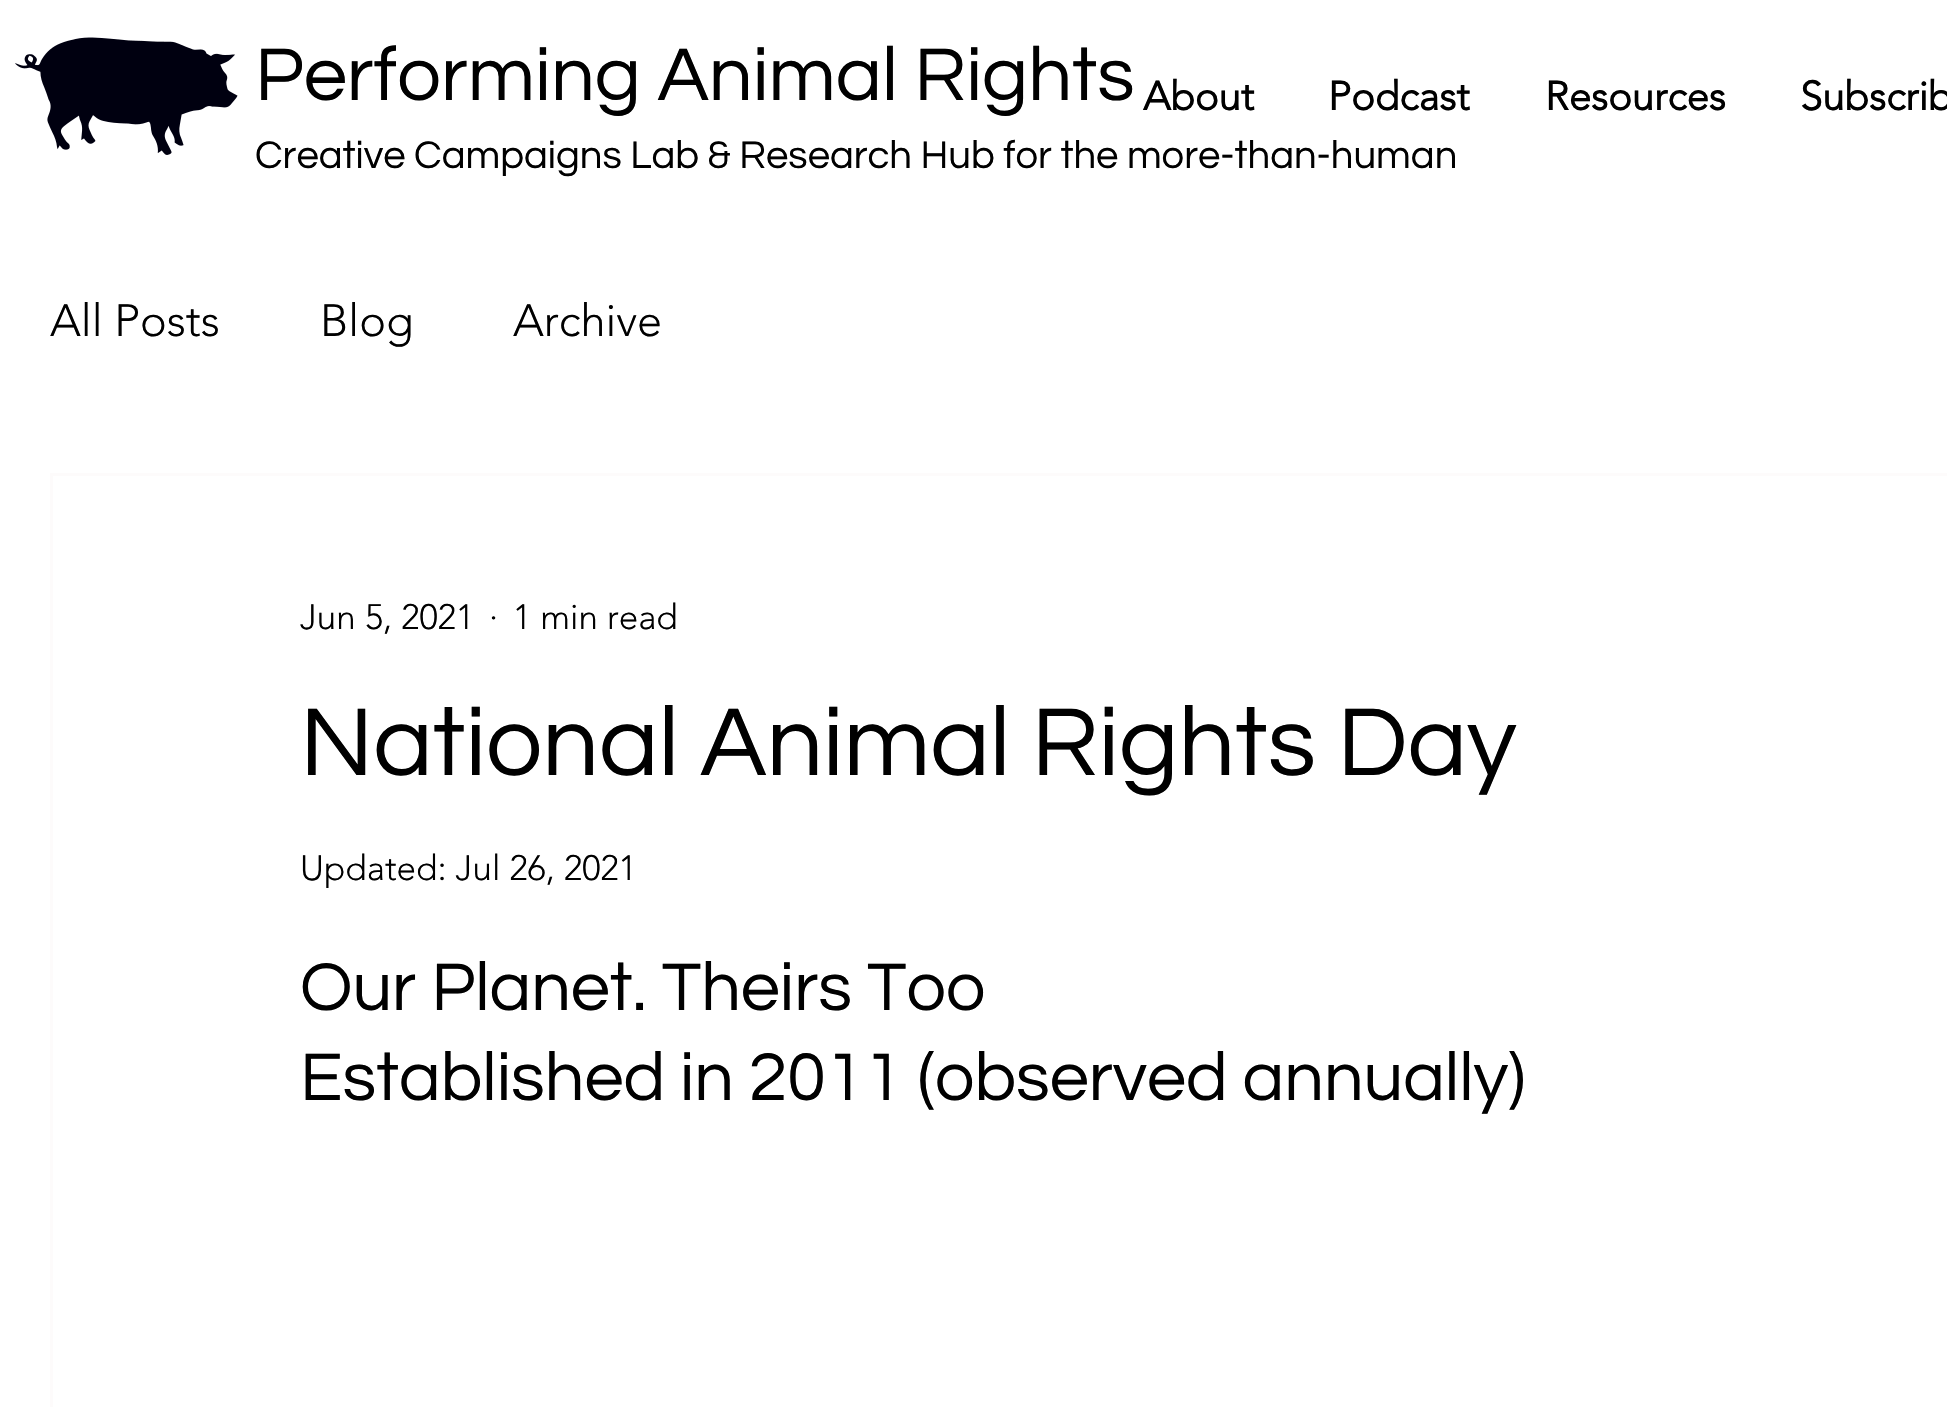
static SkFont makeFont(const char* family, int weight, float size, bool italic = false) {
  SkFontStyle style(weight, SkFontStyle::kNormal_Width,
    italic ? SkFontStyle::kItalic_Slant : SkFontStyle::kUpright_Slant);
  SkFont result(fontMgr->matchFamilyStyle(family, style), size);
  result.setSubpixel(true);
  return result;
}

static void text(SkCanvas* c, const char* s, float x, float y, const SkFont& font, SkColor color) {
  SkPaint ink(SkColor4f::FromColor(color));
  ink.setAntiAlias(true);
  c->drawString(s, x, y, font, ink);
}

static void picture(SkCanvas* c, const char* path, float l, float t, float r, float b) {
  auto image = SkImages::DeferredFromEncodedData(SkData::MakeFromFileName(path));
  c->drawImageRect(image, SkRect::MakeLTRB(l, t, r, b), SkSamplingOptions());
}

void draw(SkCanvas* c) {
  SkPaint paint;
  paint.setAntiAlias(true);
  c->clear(0xffffffff);
  picture(c, "img_01.png", 15, 37, 238, 155);
  SkFont face1 = makeFont("Questrial", 400, 77.5f);
  text(c, "Performing Animal Rights", 255, 100, face1, 0xff000000);
  SkFont face2 = makeFont("Questrial", 400, 40);
  text(c, "Creative Campaigns Lab & Research Hub for the more-than-human", 255, 168, face2, 0xff000000);
  SkFont face3 = makeFont("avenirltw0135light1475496", 700, 40);
  text(c, "About", 1143, 110, face3, 0xff000000);
  text(c, "Podcast", 1328, 110, face3, 0xff000000);
  text(c, "Resources", 1545, 110, face3, 0xff000000);
  text(c, "Subscrib", 1800, 110, face3, 0xff000000);
  SkFont face4 = makeFont("avenirltw0135light1475496", 300, 45);
  text(c, "All Posts", 50, 336, face4, 0xff000000);
  text(c, "Blog", 320, 336, face4, 0xff000000);
  text(c, "Archive", 513, 336, face4, 0xff000000);
  paint.setStyle(SkPaint::kStroke_Style);
  paint.setStrokeWidth(3);
  paint.setColor(0xfffdfbfb);
  c->drawRect(SkRect::MakeLTRB(51.5f, 474.5f, 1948.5f, 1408.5f), paint);
  SkFont face5 = makeFont("avenirltw0135light1475496", 300, 35);
  text(c, "Jun 5, 2021", 300, 629, face5, 0xff000000);
  text(c, "·", 489, 629, face5, 0xff000000);
  text(c, "1 min read", 513, 629, face5, 0xff000000);
  SkFont face6 = makeFont("Questrial", 400, 100);
  text(c, "National Animal Rights Day", 300, 775, face6, 0xff000000);
  text(c, "Updated: Jul 26, 2021", 300, 880, face5, 0xff000000);
  SkFont face7 = makeFont("Questrial", 400, 70);
  text(c, "Our Planet. Theirs Too", 300, 1010, face7, 0xff000000);
  text(c, "Established in 2011 (observed annually)", 300, 1100, face7, 0xff000000);
}
